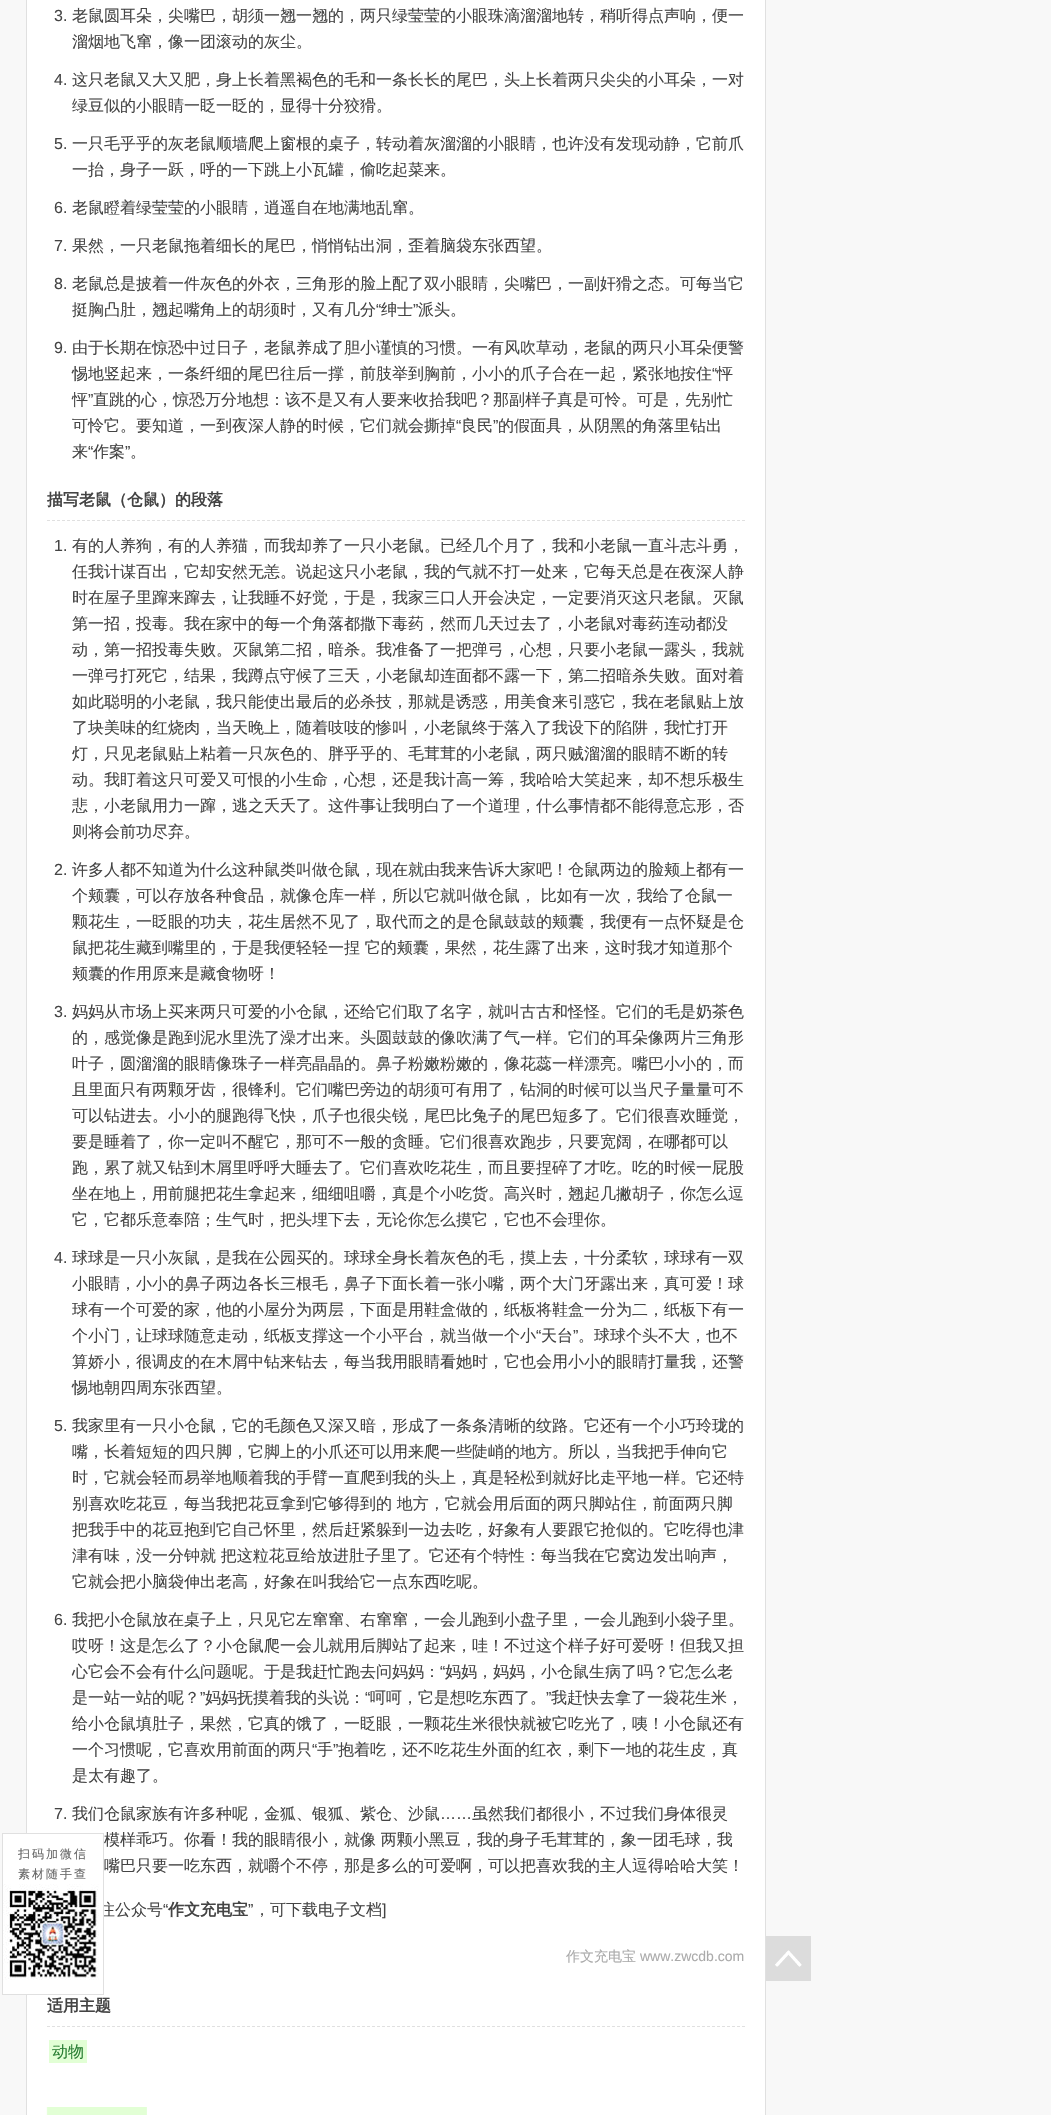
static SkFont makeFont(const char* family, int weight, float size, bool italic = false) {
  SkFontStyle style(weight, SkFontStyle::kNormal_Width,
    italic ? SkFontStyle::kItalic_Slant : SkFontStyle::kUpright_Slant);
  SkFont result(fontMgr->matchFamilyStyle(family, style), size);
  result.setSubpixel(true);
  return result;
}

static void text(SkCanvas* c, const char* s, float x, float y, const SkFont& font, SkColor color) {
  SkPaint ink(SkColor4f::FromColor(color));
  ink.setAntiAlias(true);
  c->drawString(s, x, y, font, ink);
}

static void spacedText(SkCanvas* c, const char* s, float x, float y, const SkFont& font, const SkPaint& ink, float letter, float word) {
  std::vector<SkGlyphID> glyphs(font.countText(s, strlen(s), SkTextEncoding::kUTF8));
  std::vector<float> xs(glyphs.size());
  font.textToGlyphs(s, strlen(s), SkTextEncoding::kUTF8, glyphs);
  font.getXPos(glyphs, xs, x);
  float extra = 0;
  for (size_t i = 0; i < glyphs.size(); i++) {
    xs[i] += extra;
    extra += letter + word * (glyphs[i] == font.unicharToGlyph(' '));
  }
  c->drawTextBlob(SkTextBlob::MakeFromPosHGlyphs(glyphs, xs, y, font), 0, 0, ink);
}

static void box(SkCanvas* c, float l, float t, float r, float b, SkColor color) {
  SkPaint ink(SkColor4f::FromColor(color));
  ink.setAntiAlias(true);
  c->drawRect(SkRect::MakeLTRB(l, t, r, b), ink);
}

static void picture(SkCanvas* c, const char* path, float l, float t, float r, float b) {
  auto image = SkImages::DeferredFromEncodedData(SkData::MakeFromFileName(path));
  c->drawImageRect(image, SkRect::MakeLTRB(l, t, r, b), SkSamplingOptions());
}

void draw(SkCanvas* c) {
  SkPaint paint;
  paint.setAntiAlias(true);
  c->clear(0xfff8f8f8);
  paint.setColor(0xffffffff);
  c->drawRect(SkRect::MakeLTRB(26.5f, -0.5f, 765.5f, 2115.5f), paint);
  paint.setStyle(SkPaint::kStroke_Style);
  paint.setStrokeWidth(1);
  paint.setColor(0xffe0e0e0);
  c->drawRect(SkRect::MakeLTRB(26.5f, -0.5f, 765.5f, 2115.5f), paint);
  SkFont face1 = makeFont("Liberation Sans", 400, 16);
  text(c, "3.", 54, 21, face1, 0xff444444);
  SkFont face2 = makeFont("WenQuanYi Zen Hei", 500, 16);
  text(c, "老鼠圆耳朵，尖嘴巴，胡须一翘一翘的，两只绿莹莹的小眼珠滴溜溜地转，稍听得点声响，便一", 72, 21, face2, 0xff444444);
  text(c, "溜烟地飞窜，像一团滚动的灰尘。", 72, 47, face2, 0xff444444);
  text(c, "4.", 54, 85, face1, 0xff444444);
  text(c, "这只老鼠又大又肥，身上长着黑褐色的毛和一条长长的尾巴，头上长着两只尖尖的小耳朵，一对", 72, 85, face2, 0xff444444);
  text(c, "绿豆似的小眼睛一眨一眨的，显得十分狡猾。", 72, 111, face2, 0xff444444);
  text(c, "5.", 54, 149, face1, 0xff444444);
  text(c, "一只毛乎乎的灰老鼠顺墙爬上窗根的桌子，转动着灰溜溜的小眼睛，也许没有发现动静，它前爪", 72, 149, face2, 0xff444444);
  text(c, "一抬，身子一跃，呼的一下跳上小瓦罐，偷吃起菜来。", 72, 175, face2, 0xff444444);
  text(c, "6.", 54, 213, face1, 0xff444444);
  text(c, "老鼠瞪着绿莹莹的小眼睛，逍遥自在地满地乱窜。", 72, 213, face2, 0xff444444);
  text(c, "7.", 54, 251, face1, 0xff444444);
  text(c, "果然，一只老鼠拖着细长的尾巴，悄悄钻出洞，歪着脑袋东张西望。", 72, 251, face2, 0xff444444);
  text(c, "8.", 54, 289, face1, 0xff444444);
  text(c, "老鼠总是披着一件灰色的外衣，三角形的脸上配了双小眼睛，尖嘴巴，一副奸猾之态。可每当它", 72, 289, face2, 0xff444444);
  text(c, "挺胸凸肚，翘起嘴角上的胡须时，又有几分", 72, 315, face2, 0xff444444);
  text(c, "“", 376, 315, face1, 0xff444444);
  text(c, "绅士", 381, 315, face2, 0xff444444);
  text(c, "”", 413, 315, face1, 0xff444444);
  text(c, "派头。", 418, 315, face2, 0xff444444);
  text(c, "9.", 54, 353, face1, 0xff444444);
  text(c, "由于长期在惊恐中过日子，老鼠养成了胆小谨慎的习惯。一有风吹草动，老鼠的两只小耳朵便警", 72, 353, face2, 0xff444444);
  text(c, "惕地竖起来，一条纤细的尾巴往后一撑，前肢举到胸前，小小的爪子合在一起，紧张地按住", 72, 379, face2, 0xff444444);
  text(c, "“", 712, 379, face1, 0xff444444);
  text(c, "怦", 717, 379, face2, 0xff444444);
  text(c, "怦", 72, 405, face2, 0xff444444);
  text(c, "”", 88, 405, face1, 0xff444444);
  text(c, "直跳的心，惊恐万分地想：该不是又有人要来收拾我吧？那副样子真是可怜。可是，先别忙", 93, 405, face2, 0xff444444);
  text(c, "可怜它。要知道，一到夜深人静的时候，它们就会撕掉", 72, 431, face2, 0xff444444);
  text(c, "“", 456, 431, face1, 0xff444444);
  text(c, "良民", 461, 431, face2, 0xff444444);
  text(c, "”", 493, 431, face1, 0xff444444);
  text(c, "的假面具，从阴黑的角落里钻出", 498, 431, face2, 0xff444444);
  text(c, "来", 72, 457, face2, 0xff444444);
  text(c, "“", 88, 457, face1, 0xff444444);
  text(c, "作案", 93, 457, face2, 0xff444444);
  text(c, "”", 125, 457, face1, 0xff444444);
  text(c, "。", 130, 457, face2, 0xff444444);
  paint.setPathEffect(SkDashPathEffect::Make({{3, 2}}, 0));
  c->drawPath(SkPathBuilder().moveTo(47, 520.5f).lineTo(745, 520.5f).detach(), paint);
  paint.setPathEffect(nullptr);
  SkFont face3 = makeFont("WenQuanYi Zen Hei", 700, 16);
  text(c, "描写老鼠（仓鼠）的段落", 47, 505, face3, 0xff444444);
  text(c, "1.", 54, 551, face1, 0xff444444);
  text(c, "有的人养狗，有的人养猫，而我却养了一只小老鼠。已经几个月了，我和小老鼠一直斗志斗勇，", 72, 551, face2, 0xff444444);
  text(c, "任我计谋百出，它却安然无恙。说起这只小老鼠，我的气就不打一处来，它每天总是在夜深人静", 72, 577, face2, 0xff444444);
  text(c, "时在屋子里蹿来蹿去，让我睡不好觉，于是，我家三口人开会决定，一定要消灭这只老鼠。灭鼠", 72, 603, face2, 0xff444444);
  text(c, "第一招，投毒。我在家中的每一个角落都撒下毒药，然而几天过去了，小老鼠对毒药连动都没", 72, 629, face2, 0xff444444);
  text(c, "动，第一招投毒失败。灭鼠第二招，暗杀。我准备了一把弹弓，心想，只要小老鼠一露头，我就", 72, 655, face2, 0xff444444);
  text(c, "一弹弓打死它，结果，我蹲点守候了三天，小老鼠却连面都不露一下，第二招暗杀失败。面对着", 72, 681, face2, 0xff444444);
  text(c, "如此聪明的小老鼠，我只能使出最后的必杀技，那就是诱惑，用美食来引惑它，我在老鼠贴上放", 72, 707, face2, 0xff444444);
  text(c, "了块美味的红烧肉，当天晚上，随着吱吱的惨叫，小老鼠终于落入了我设下的陷阱，我忙打开", 72, 733, face2, 0xff444444);
  text(c, "灯，只见老鼠贴上粘着一只灰色的、胖乎乎的、毛茸茸的小老鼠，两只贼溜溜的眼睛不断的转", 72, 759, face2, 0xff444444);
  text(c, "动。我盯着这只可爱又可恨的小生命，心想，还是我计高一筹，我哈哈大笑起来，却不想乐极生", 72, 785, face2, 0xff444444);
  text(c, "悲，小老鼠用力一蹿，逃之夭夭了。这件事让我明白了一个道理，什么事情都不能得意忘形，否", 72, 811, face2, 0xff444444);
  text(c, "则将会前功尽弃。", 72, 837, face2, 0xff444444);
  text(c, "2.", 54, 875, face1, 0xff444444);
  text(c, "许多人都不知道为什么这种鼠类叫做仓鼠，现在就由我来告诉大家吧！仓鼠两边的脸颊上都有一", 72, 875, face2, 0xff444444);
  text(c, "个颊囊，可以存放各种食品，就像仓库一样，所以它就叫做仓鼠， 比如有一次，我给了仓鼠一", 72, 901, face2, 0xff444444);
  text(c, "颗花生，一眨眼的功夫，花生居然不见了，取代而之的是仓鼠鼓鼓的颊囊，我便有一点怀疑是仓", 72, 927, face2, 0xff444444);
  text(c, "鼠把花生藏到嘴里的，于是我便轻轻一捏 它的颊囊，果然，花生露了出来，这时我才知道那个", 72, 953, face2, 0xff444444);
  text(c, "颊囊的作用原来是藏食物呀！", 72, 979, face2, 0xff444444);
  text(c, "3.", 54, 1017, face1, 0xff444444);
  text(c, "妈妈从市场上买来两只可爱的小仓鼠，还给它们取了名字，就叫古古和怪怪。它们的毛是奶茶色", 72, 1017, face2, 0xff444444);
  text(c, "的，感觉像是跑到泥水里洗了澡才出来。头圆鼓鼓的像吹满了气一样。它们的耳朵像两片三角形", 72, 1043, face2, 0xff444444);
  text(c, "叶子，圆溜溜的眼睛像珠子一样亮晶晶的。鼻子粉嫩粉嫩的，像花蕊一样漂亮。嘴巴小小的，而", 72, 1069, face2, 0xff444444);
  text(c, "且里面只有两颗牙齿，很锋利。它们嘴巴旁边的胡须可有用了，钻洞的时候可以当尺子量量可不", 72, 1095, face2, 0xff444444);
  text(c, "可以钻进去。小小的腿跑得飞快，爪子也很尖锐，尾巴比兔子的尾巴短多了。它们很喜欢睡觉，", 72, 1121, face2, 0xff444444);
  text(c, "要是睡着了，你一定叫不醒它，那可不一般的贪睡。它们很喜欢跑步，只要宽阔，在哪都可以", 72, 1147, face2, 0xff444444);
  text(c, "跑，累了就又钻到木屑里呼呼大睡去了。它们喜欢吃花生，而且要捏碎了才吃。吃的时候一屁股", 72, 1173, face2, 0xff444444);
  text(c, "坐在地上，用前腿把花生拿起来，细细咀嚼，真是个小吃货。高兴时，翘起几撇胡子，你怎么逗", 72, 1199, face2, 0xff444444);
  text(c, "它，它都乐意奉陪；生气时，把头埋下去，无论你怎么摸它，它也不会理你。", 72, 1225, face2, 0xff444444);
  text(c, "4.", 54, 1263, face1, 0xff444444);
  text(c, "球球是一只小灰鼠，是我在公园买的。球球全身长着灰色的毛，摸上去，十分柔软，球球有一双", 72, 1263, face2, 0xff444444);
  text(c, "小眼睛，小小的鼻子两边各长三根毛，鼻子下面长着一张小嘴，两个大门牙露出来，真可爱！球", 72, 1289, face2, 0xff444444);
  text(c, "球有一个可爱的家，他的小屋分为两层，下面是用鞋盒做的，纸板将鞋盒一分为二，纸板下有一", 72, 1315, face2, 0xff444444);
  text(c, "个小门，让球球随意走动，纸板支撑这一个小平台，就当做一个小", 72, 1341, face2, 0xff444444);
  text(c, "“", 536, 1341, face1, 0xff444444);
  text(c, "天台", 541, 1341, face2, 0xff444444);
  text(c, "”", 573, 1341, face1, 0xff444444);
  text(c, "。球球个头不大，也不", 578, 1341, face2, 0xff444444);
  text(c, "算娇小，很调皮的在木屑中钻来钻去，每当我用眼睛看她时，它也会用小小的眼睛打量我，还警", 72, 1367, face2, 0xff444444);
  text(c, "惕地朝四周东张西望。", 72, 1393, face2, 0xff444444);
  text(c, "5.", 54, 1431, face1, 0xff444444);
  text(c, "我家里有一只小仓鼠，它的毛颜色又深又暗，形成了一条条清晰的纹路。它还有一个小巧玲珑的", 72, 1431, face2, 0xff444444);
  text(c, "嘴，长着短短的四只脚，它脚上的小爪还可以用来爬一些陡峭的地方。所以，当我把手伸向它", 72, 1457, face2, 0xff444444);
  text(c, "时，它就会轻而易举地顺着我的手臂一直爬到我的头上，真是轻松到就好比走平地一样。它还特", 72, 1483, face2, 0xff444444);
  text(c, "别喜欢吃花豆，每当我把花豆拿到它够得到的 地方，它就会用后面的两只脚站住，前面两只脚", 72, 1509, face2, 0xff444444);
  text(c, "把我手中的花豆抱到它自己怀里，然后赶紧躲到一边去吃，好象有人要跟它抢似的。它吃得也津", 72, 1535, face2, 0xff444444);
  text(c, "津有味，没一分钟就 把这粒花豆给放进肚子里了。它还有个特性：每当我在它窝边发出响声，", 72, 1561, face2, 0xff444444);
  text(c, "它就会把小脑袋伸出老高，好象在叫我给它一点东西吃呢。", 72, 1587, face2, 0xff444444);
  text(c, "6.", 54, 1625, face1, 0xff444444);
  text(c, "我把小仓鼠放在桌子上，只见它左窜窜、右窜窜，一会儿跑到小盘子里，一会儿跑到小袋子里。", 72, 1625, face2, 0xff444444);
  text(c, "哎呀！这是怎么了？小仓鼠爬一会儿就用后脚站了起来，哇！不过这个样子好可爱呀！但我又担", 72, 1651, face2, 0xff444444);
  text(c, "心它会不会有什么问题呢。于是我赶忙跑去问妈妈：", 72, 1677, face2, 0xff444444);
  text(c, "“", 440, 1677, face1, 0xff444444);
  text(c, "妈妈，妈妈，小仓鼠生病了吗？它怎么老", 445, 1677, face2, 0xff444444);
  text(c, "是一站一站的呢？", 72, 1703, face2, 0xff444444);
  text(c, "”", 200, 1703, face1, 0xff444444);
  text(c, "妈妈抚摸着我的头说：", 205, 1703, face2, 0xff444444);
  text(c, "“", 365, 1703, face1, 0xff444444);
  text(c, "呵呵，它是想吃东西了。", 370, 1703, face2, 0xff444444);
  text(c, "”", 546, 1703, face1, 0xff444444);
  text(c, "我赶快去拿了一袋花生米，", 551, 1703, face2, 0xff444444);
  text(c, "给小仓鼠填肚子，果然，它真的饿了，一眨眼，一颗花生米很快就被它吃光了，咦！小仓鼠还有", 72, 1729, face2, 0xff444444);
  text(c, "一个习惯呢，它喜欢用前面的两只", 72, 1755, face2, 0xff444444);
  text(c, "“", 312, 1755, face1, 0xff444444);
  text(c, "手", 317, 1755, face2, 0xff444444);
  text(c, "”", 333, 1755, face1, 0xff444444);
  text(c, "抱着吃，还不吃花生外面的红衣，剩下一地的花生皮，真", 338, 1755, face2, 0xff444444);
  text(c, "是太有趣了。", 72, 1781, face2, 0xff444444);
  text(c, "7.", 54, 1819, face1, 0xff444444);
  text(c, "我们仓鼠家族有许多种呢，金狐、银狐、紫仓、沙鼠", 72, 1819, face2, 0xff444444);
  text(c, "……", 440, 1819, face1, 0xff444444);
  text(c, "虽然我们都很小，不过我们身体很灵", 472, 1819, face2, 0xff444444);
  text(c, "模样乖巧。你看！我的眼睛很小，就像 两颗小黑豆，我的身子毛茸茸的，象一团毛球，我", 104, 1845, face2, 0xff444444);
  text(c, "嘴巴只要一吃东西，就嚼个不停，那是多么的可爱啊，可以把喜欢我的主人逗得哈哈大笑！", 104, 1871, face2, 0xff444444);
  text(c, "注公众号", 99, 1915, face2, 0xff444444);
  text(c, "“", 163, 1915, face1, 0xff444444);
  text(c, "作文充电宝", 168, 1915, face3, 0xff444444);
  text(c, "”", 248, 1915, face1, 0xff444444);
  text(c, "，可下载电子文档", 254, 1915, face2, 0xff444444);
  text(c, "]", 382, 1915, face1, 0xff444444);
  SkFont face4 = makeFont("WenQuanYi Zen Hei", 500, 14);
  text(c, "作文充电宝", 566, 1961, face4, 0xffaaaaaa);
  SkFont face5 = makeFont("Liberation Sans", 400, 14);
  text(c, "www.zwcdb.com", 640, 1961, face5, 0xffaaaaaa);
  paint.setPathEffect(SkDashPathEffect::Make({{3, 2}}, 0));
  c->drawPath(SkPathBuilder().moveTo(47, 2026.5f).lineTo(745, 2026.5f).detach(), paint);
  paint.setPathEffect(nullptr);
  text(c, "适用主题", 47, 2011, face3, 0xff444444);
  box(c, 49, 2040, 87, 2063, 0xffe2ffd5);
  text(c, "动物", 52, 2057, face2, 0xff2a7f34);
  picture(c, "img_01.png", 46, 2107, 147, 2115);
  paint.setStyle(SkPaint::kFill_Style);
  paint.setColor(0xffffffff);
  c->drawRect(SkRect::MakeLTRB(2.5f, 1833.5f, 103.5f, 1994.5f), paint);
  paint.setStyle(SkPaint::kStroke_Style);
  paint.setColor(0xffe0e0e0);
  c->drawRect(SkRect::MakeLTRB(2.5f, 1833.5f, 103.5f, 1994.5f), paint);
  SkFont face6 = makeFont("WenQuanYi Zen Hei", 500, 12);
  paint.setStyle(SkPaint::kFill_Style);
  paint.setColor(0xff666666);
  spacedText(c, "扫码加微信", 18, 1858, face6, paint, 2, 0);
  spacedText(c, "素材随手查", 18, 1878, face6, paint, 2, 0);
  picture(c, "img_02.png", 3, 1884, 99, 1980);
  picture(c, "img_03.png", 766, 1936, 811, 1981);
}
